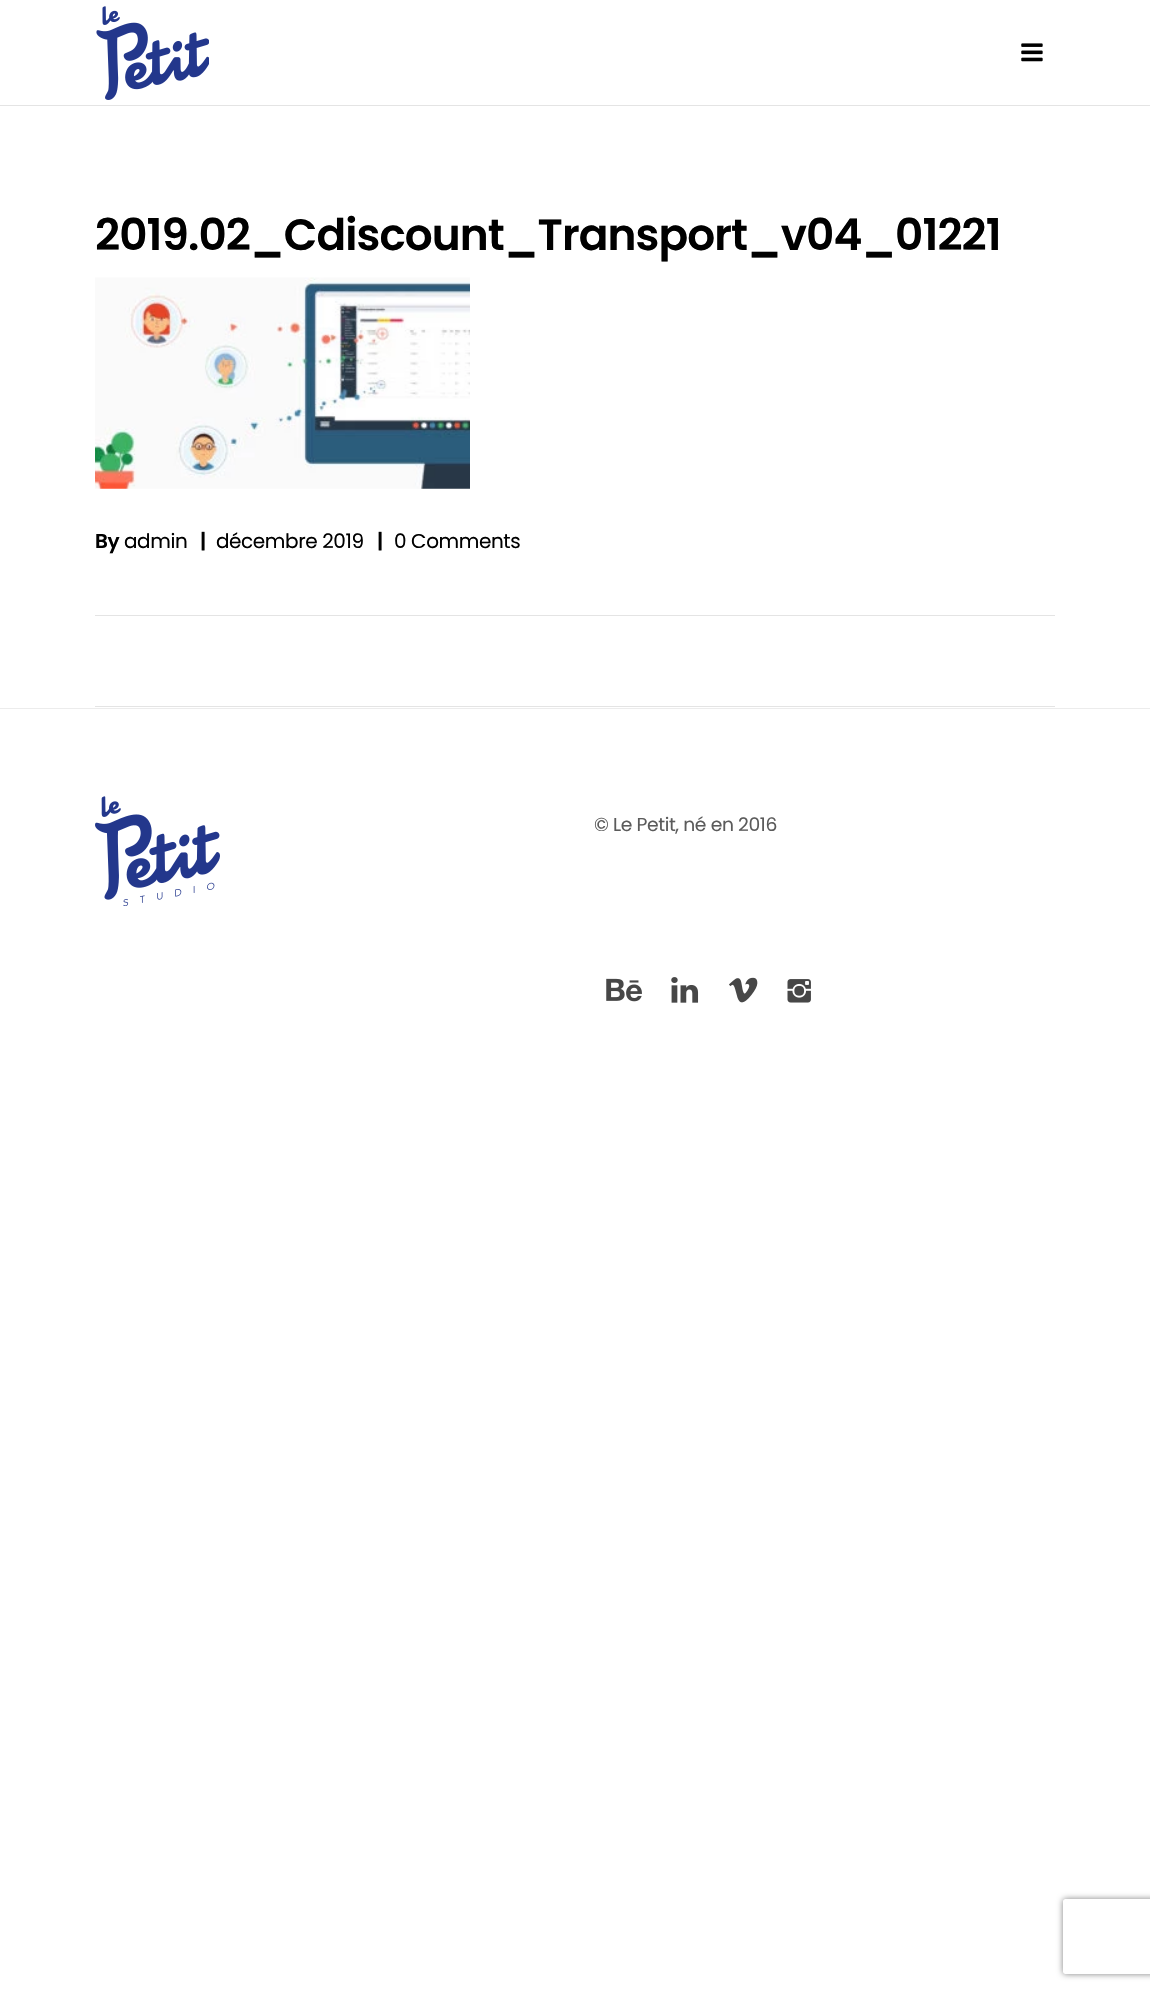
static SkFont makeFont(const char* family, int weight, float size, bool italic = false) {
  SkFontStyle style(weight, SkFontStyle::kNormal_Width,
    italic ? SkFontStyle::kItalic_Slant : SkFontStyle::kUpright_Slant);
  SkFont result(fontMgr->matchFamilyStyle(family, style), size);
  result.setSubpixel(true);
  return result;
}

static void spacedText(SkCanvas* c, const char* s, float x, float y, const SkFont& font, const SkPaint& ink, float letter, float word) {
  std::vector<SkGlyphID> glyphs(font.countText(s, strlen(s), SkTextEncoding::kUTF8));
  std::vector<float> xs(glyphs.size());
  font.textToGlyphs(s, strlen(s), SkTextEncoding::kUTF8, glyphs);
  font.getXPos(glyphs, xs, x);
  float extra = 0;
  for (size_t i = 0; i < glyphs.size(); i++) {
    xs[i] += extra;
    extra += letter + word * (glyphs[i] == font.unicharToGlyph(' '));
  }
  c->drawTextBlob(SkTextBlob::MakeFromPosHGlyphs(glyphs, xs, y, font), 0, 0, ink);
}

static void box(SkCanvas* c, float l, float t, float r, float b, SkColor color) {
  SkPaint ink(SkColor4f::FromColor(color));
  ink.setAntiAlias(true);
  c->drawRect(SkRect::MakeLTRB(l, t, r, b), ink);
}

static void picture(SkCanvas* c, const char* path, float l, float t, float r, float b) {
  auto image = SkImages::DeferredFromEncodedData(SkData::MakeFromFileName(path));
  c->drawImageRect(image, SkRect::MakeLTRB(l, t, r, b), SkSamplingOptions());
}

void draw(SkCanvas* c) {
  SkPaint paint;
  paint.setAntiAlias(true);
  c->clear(0xffffffff);
  box(c, 0, 105, 1150, 106, 0xffe4e4e4);
  picture(c, "img_01.png", 96, 6, 209, 100);
  picture(c, "img_02.png", 1021, 43, 1043, 62);
  box(c, 95, 615, 1055, 616, 0xffe4e4e4);
  SkFont face1 = makeFont("Poppins", 600, 43.75f);
  paint.setColor(0xff000000);
  spacedText(c, "2019.02_Cdiscount_Transport_v04_01221", 95, 250, face1, paint, -0.9f, 0);
  picture(c, "img_03.png", 95, 277, 470, 489);
  SkFont face2 = makeFont("Poppins", 600, 20);
  spacedText(c, "By", 95, 548, face2, paint, -0.4f, 0);
  SkFont face3 = makeFont("Poppins", 400, 20);
  spacedText(c, "admin", 124, 548, face3, paint, -0.4f, 0);
  spacedText(c, "|", 200, 548, face2, paint, -0.4f, 0);
  spacedText(c, "décembre 2019", 216, 548, face3, paint, -0.4f, 0);
  spacedText(c, "|", 377, 548, face2, paint, -0.4f, 0);
  spacedText(c, "0 Comments", 394, 548, face3, paint, -0.4f, 0);
  box(c, 95, 706, 1055, 707, 0xffe4e4e4);
  box(c, 0, 708, 1150, 709, 0xffececec);
  picture(c, "img_04.png", 95, 796, 220, 906);
  SkFont face4 = makeFont("Poppins", 400, 18.75f);
  paint.setColor(0xff5b5b5b);
  spacedText(c, "© Le Petit, né en 2016", 594, 831, face4, paint, -0.4f, 0);
  picture(c, "img_05.png", 606, 978, 642, 1002);
  picture(c, "img_06.png", 671, 977, 699, 1003);
  picture(c, "img_07.png", 729, 977, 758, 1003);
  picture(c, "img_08.png", 787, 979, 811, 1003);
  c->save();
  c->clipPath(SkPathBuilder(SkPathFillType::kEvenOdd).moveTo(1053, 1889).lineTo(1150, 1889).lineTo(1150, 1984).lineTo(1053, 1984).close().moveTo(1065.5f, 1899).lineTo(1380.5f, 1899).cubicTo(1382, 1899, 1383, 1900, 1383, 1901.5f).lineTo(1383, 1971.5f).cubicTo(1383, 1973, 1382, 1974, 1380.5f, 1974).lineTo(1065.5f, 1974).cubicTo(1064, 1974, 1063, 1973, 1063, 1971.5f).lineTo(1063, 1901.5f).cubicTo(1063, 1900, 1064, 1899, 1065.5f, 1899).close().detach(), true);
  paint.setColor(0xff808080);
  paint.setMaskFilter(SkMaskFilter::MakeBlur(kNormal_SkBlurStyle, 3));
  c->drawRoundRect(SkRect::MakeLTRB(1063, 1899, 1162, 1974), 2.5f, 2.5f, paint);
  paint.setMaskFilter(nullptr);
  c->restore();
}
